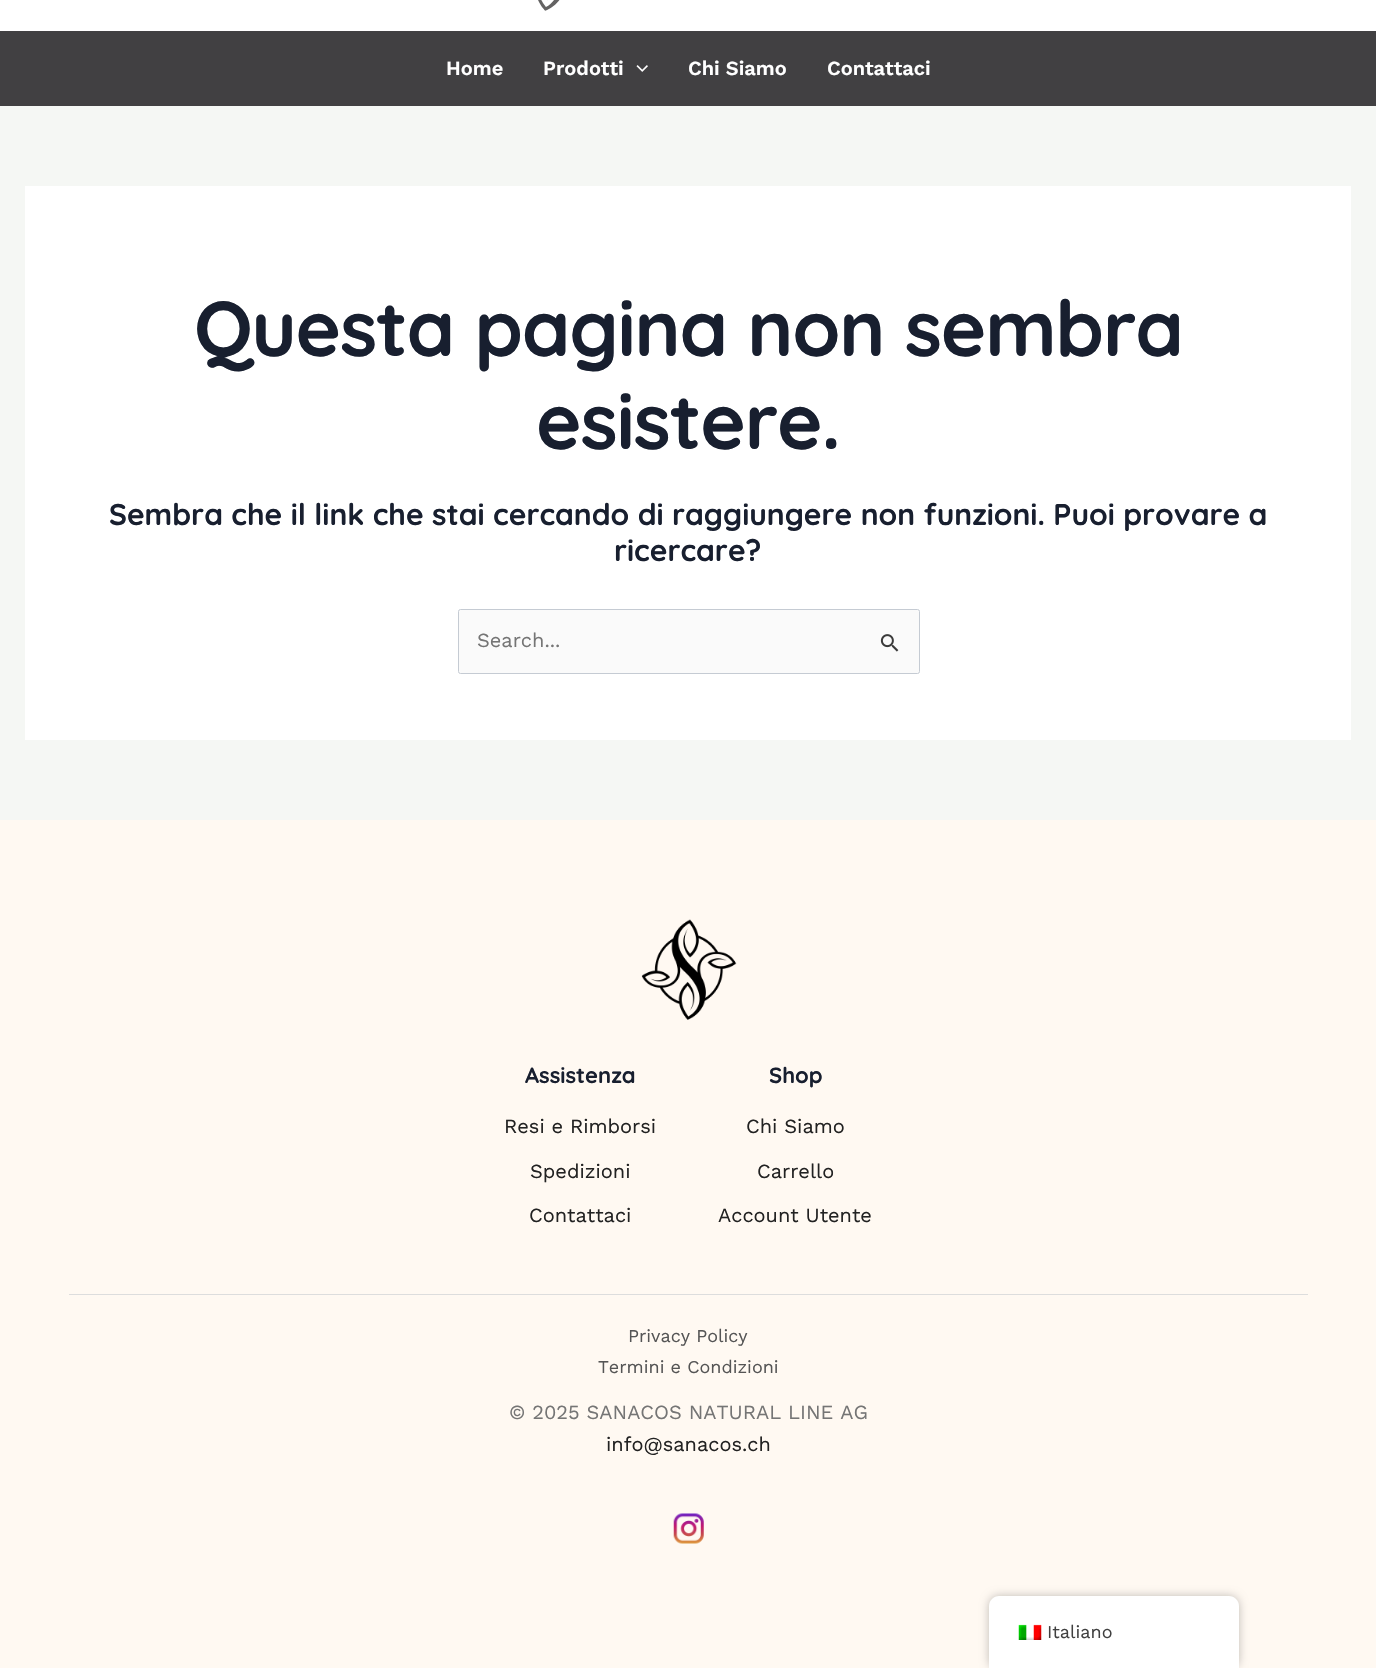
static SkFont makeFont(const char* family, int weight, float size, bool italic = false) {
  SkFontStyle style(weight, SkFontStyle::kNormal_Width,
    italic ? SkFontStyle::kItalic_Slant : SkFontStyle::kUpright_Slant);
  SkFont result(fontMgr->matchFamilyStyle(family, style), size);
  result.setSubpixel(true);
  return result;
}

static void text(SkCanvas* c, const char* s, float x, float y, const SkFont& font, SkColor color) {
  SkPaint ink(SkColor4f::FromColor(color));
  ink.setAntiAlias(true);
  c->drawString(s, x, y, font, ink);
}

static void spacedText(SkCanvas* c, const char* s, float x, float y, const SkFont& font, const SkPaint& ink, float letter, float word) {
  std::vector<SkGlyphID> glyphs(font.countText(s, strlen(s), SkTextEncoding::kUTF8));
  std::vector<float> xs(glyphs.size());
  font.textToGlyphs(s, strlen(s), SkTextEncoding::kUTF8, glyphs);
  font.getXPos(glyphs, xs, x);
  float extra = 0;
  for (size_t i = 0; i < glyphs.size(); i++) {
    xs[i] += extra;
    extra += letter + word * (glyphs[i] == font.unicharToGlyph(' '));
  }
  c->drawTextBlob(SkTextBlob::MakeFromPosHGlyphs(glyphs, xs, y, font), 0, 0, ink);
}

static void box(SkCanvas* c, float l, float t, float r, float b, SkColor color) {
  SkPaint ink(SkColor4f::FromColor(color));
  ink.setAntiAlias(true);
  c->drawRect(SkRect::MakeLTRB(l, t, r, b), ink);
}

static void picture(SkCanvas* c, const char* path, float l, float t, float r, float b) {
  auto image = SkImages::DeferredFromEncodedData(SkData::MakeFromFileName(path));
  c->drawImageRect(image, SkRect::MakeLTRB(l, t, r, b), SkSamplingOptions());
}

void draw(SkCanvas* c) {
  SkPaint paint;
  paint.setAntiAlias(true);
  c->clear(0xfff5f7f4);
  box(c, 0, 0, 1376, 31, 0xffffffff);
  picture(c, "img_01.png", 538, 0, 560, 11);
  box(c, 0, 31, 1376, 106, 0xff414042);
  SkFont face1 = makeFont("Work Sans", 600, 20);
  text(c, "Home", 446, 75, face1, 0xffffffff);
  text(c, "Prodotti", 543, 75, face1, 0xffffffff);
  picture(c, "img_02.png", 636, 65, 648, 72);
  text(c, "Chi Siamo", 688, 75, face1, 0xffffffff);
  text(c, "Contattaci", 827, 75, face1, 0xffffffff);
  box(c, 25, 186, 1351, 740, 0xffffffff);
  SkFont face2 = makeFont("Quicksand", 300, 77.5f);
  paint.setColor(0xff181f2f);
  spacedText(c, "Questa pagina non sembra", 194, 356, face2, paint, -1.25f, 0);
  spacedText(c, "esistere.", 536, 449, face2, paint, -1.25f, 0);
  SkFont face3 = makeFont("Quicksand", 300, 30);
  text(c, "Sembra che il link che stai cercando di raggiungere non funzioni. Puoi provare a", 109, 525, face3, 0xff181f2f);
  text(c, "ricercare?", 614, 561, face3, 0xff181f2f);
  paint.setColor(0xfffafafa);
  c->drawRoundRect(SkRect::MakeLTRB(458.5f, 609.5f, 919.5f, 673.5f), 2, 2, paint);
  paint.setStyle(SkPaint::kStroke_Style);
  paint.setStrokeWidth(1);
  paint.setColor(0xffc5cbd3);
  c->drawRoundRect(SkRect::MakeLTRB(458.5f, 609.5f, 919.5f, 673.5f), 2, 2, paint);
  SkFont face4 = makeFont("Work Sans", 400, 20);
  text(c, "Search...", 477, 647, face4, 0xff757575);
  picture(c, "img_03.png", 880, 634, 899, 652);
  box(c, 0, 820, 1376, 1668, 0xfffff9f2);
  picture(c, "img_04.png", 641, 919, 737, 1020);
  SkFont face5 = makeFont("Quicksand", 300, 22);
  text(c, "Assistenza", 525, 1083, face5, 0xff181f2f);
  text(c, "Resi e Rimborsi", 504, 1133, face4, 0xff222222);
  text(c, "Spedizioni", 530, 1178, face4, 0xff222222);
  text(c, "Contattaci", 529, 1222, face4, 0xff222222);
  text(c, "Shop", 769, 1083, face5, 0xff181f2f);
  text(c, "Chi Siamo", 746, 1133, face4, 0xff222222);
  text(c, "Carrello", 757, 1178, face4, 0xff222222);
  text(c, "Account Utente", 718, 1222, face4, 0xff222222);
  box(c, 69, 1294, 1308, 1295, 0xffdddddd);
  SkFont face6 = makeFont("Work Sans", 400, 18);
  text(c, "Privacy Policy", 628, 1342, face6, 0xff555555);
  text(c, "Termini e Condizioni", 598, 1373, face6, 0xff555555);
  text(c, "© 2025 SANACOS NATURAL LINE AG", 509, 1419, face4, 0xff757575);
  text(c, "info@sanacos.ch", 606, 1451, face4, 0xff222222);
  picture(c, "img_05.png", 673, 1513, 704, 1544);
  paint.setStyle(SkPaint::kFill_Style);
  paint.setColor(0x40000000);
  paint.setMaskFilter(SkMaskFilter::MakeBlur(kNormal_SkBlurStyle, 5));
  c->drawRoundRect(SkRect::MakeLTRB(989, 1596, 1239, 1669), 10, 10, paint);
  paint.setMaskFilter(nullptr);
  paint.setColor(0xffffffff);
  c->drawPath(SkPathBuilder().moveTo(999, 1596).lineTo(1229, 1596).cubicTo(1234.5f, 1596, 1239, 1600.5f, 1239, 1606).lineTo(1239, 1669).lineTo(989, 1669).lineTo(989, 1606).cubicTo(989, 1600.5f, 993.5f, 1596, 999, 1596).close().detach(), paint);
  picture(c, "img_06.png", 1018, 1624, 1042, 1640);
  text(c, "Italiano", 1047, 1638, face6, 0xff404040);
}
